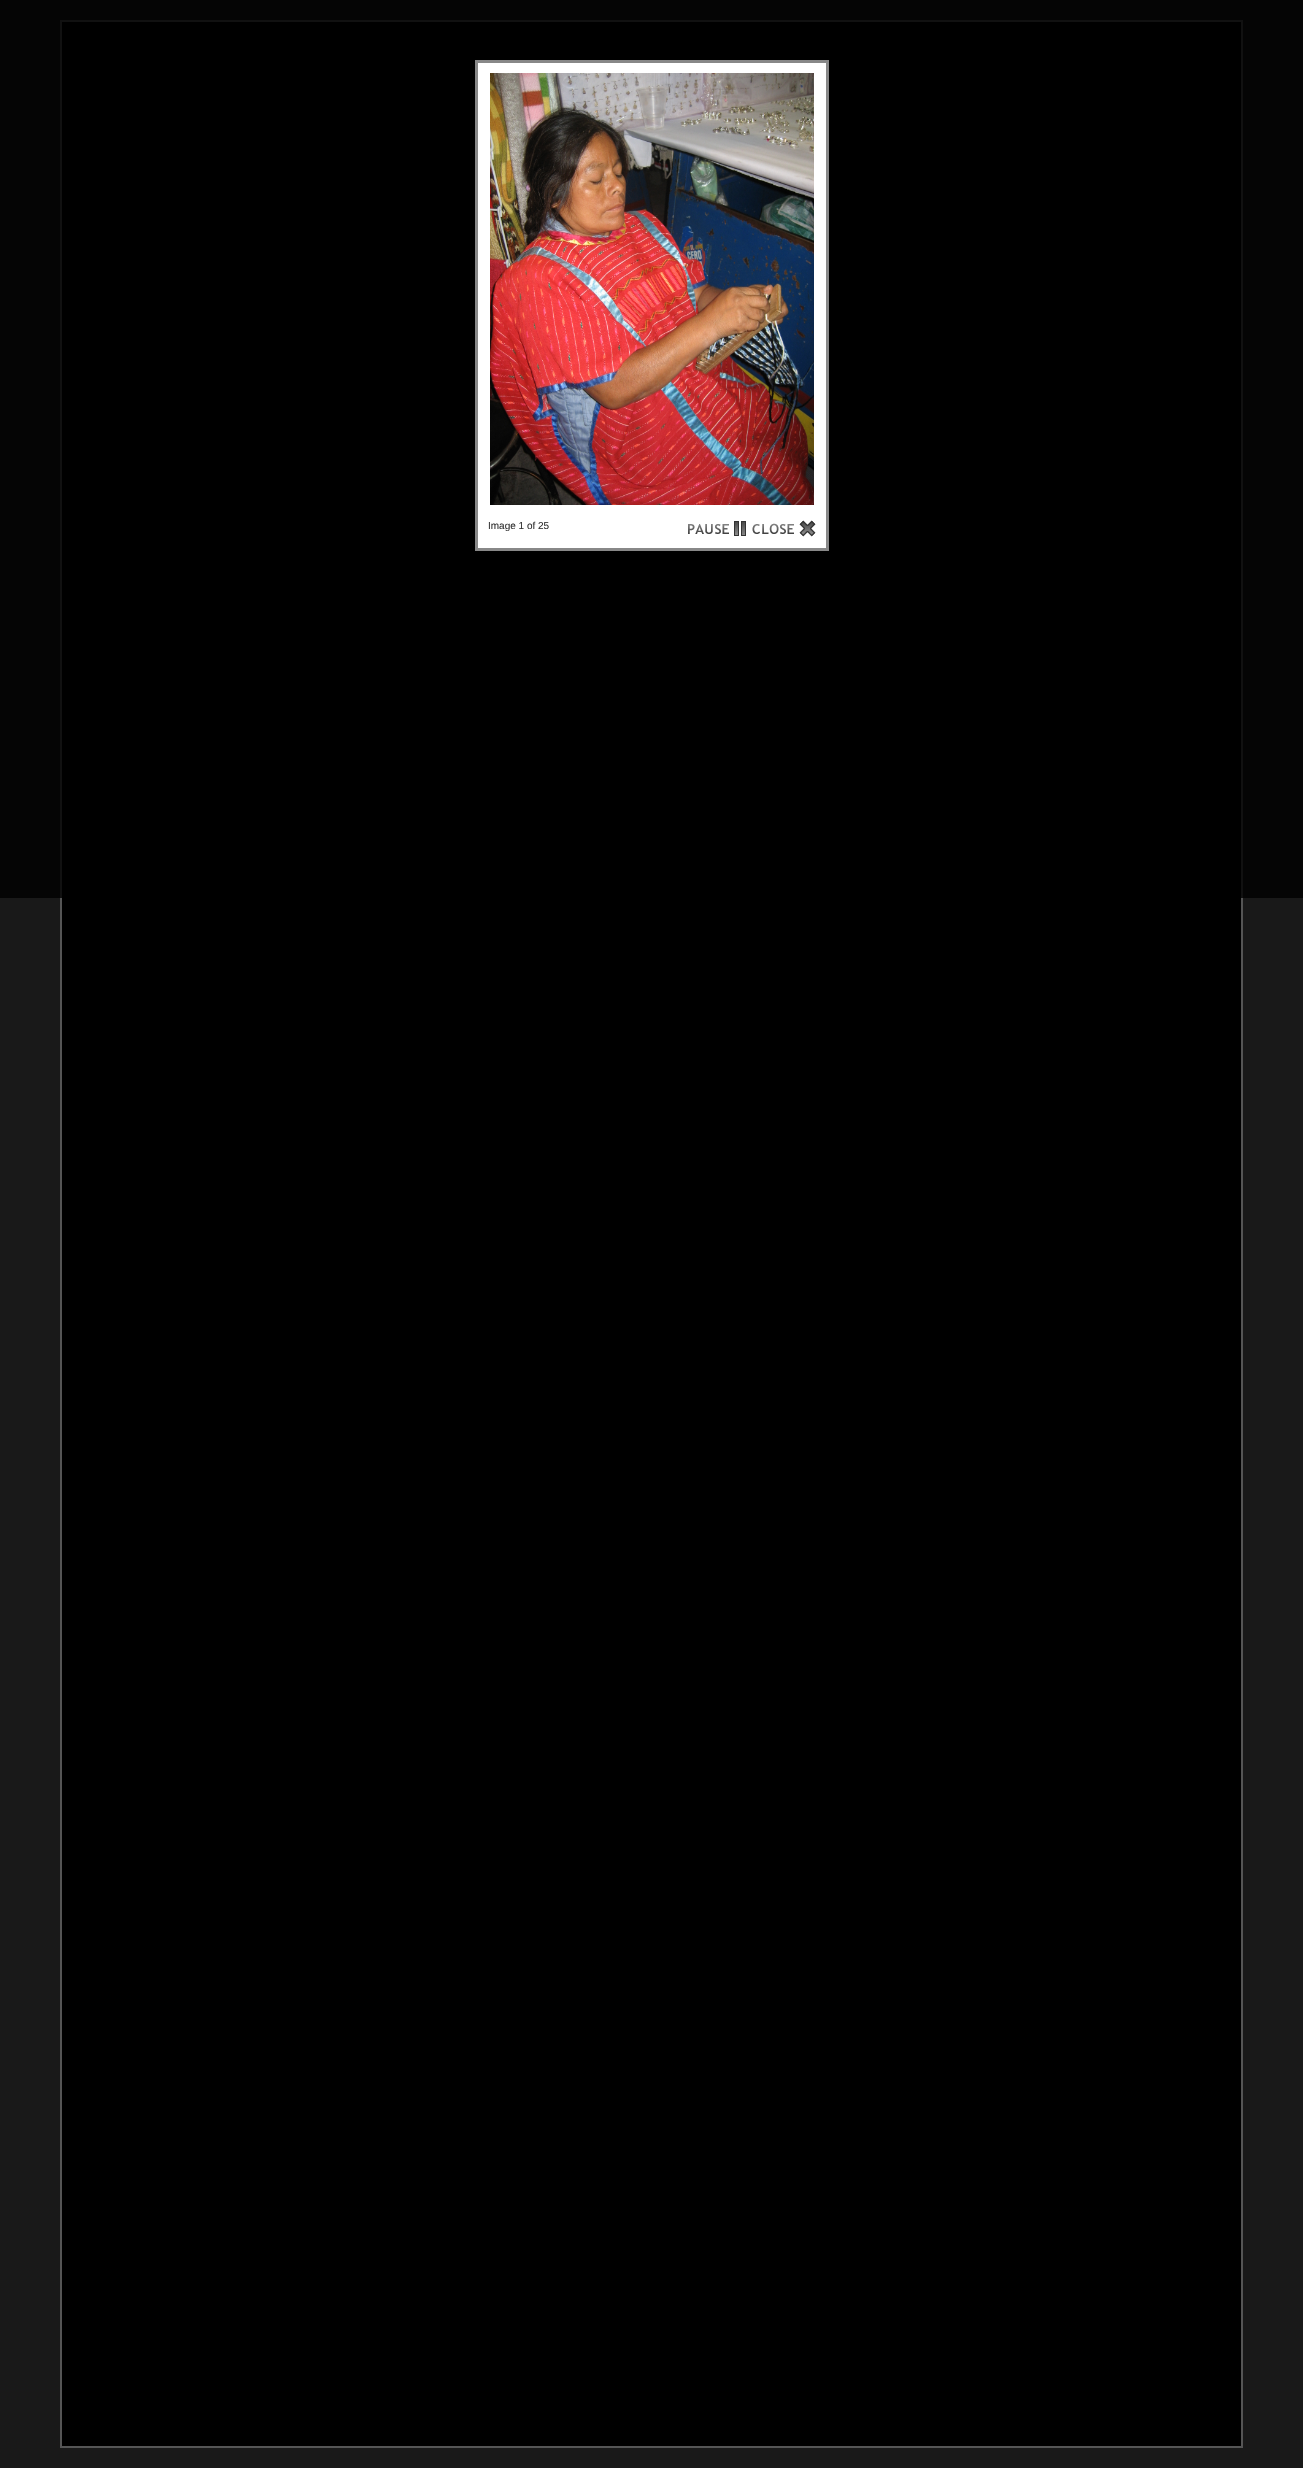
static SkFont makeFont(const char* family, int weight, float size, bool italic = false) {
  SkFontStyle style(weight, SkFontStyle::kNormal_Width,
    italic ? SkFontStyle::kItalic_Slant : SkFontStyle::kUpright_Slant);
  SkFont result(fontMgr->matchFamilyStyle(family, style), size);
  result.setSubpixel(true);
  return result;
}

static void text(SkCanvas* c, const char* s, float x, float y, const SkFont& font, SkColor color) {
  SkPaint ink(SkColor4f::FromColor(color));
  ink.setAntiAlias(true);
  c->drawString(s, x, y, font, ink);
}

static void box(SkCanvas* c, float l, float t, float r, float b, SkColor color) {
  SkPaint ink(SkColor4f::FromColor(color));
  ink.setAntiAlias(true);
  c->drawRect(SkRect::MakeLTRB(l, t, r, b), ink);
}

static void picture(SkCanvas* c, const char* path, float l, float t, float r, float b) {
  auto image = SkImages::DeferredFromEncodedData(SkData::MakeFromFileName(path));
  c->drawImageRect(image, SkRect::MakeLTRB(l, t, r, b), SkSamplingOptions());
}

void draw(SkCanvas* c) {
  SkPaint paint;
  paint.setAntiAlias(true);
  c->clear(0xff191919);
  paint.setColor(0xff000000);
  c->drawRect(SkRect::MakeLTRB(61, 21, 1242, 2447), paint);
  paint.setStyle(SkPaint::kStroke_Style);
  paint.setStrokeWidth(2);
  paint.setColor(0xff555555);
  c->drawRect(SkRect::MakeLTRB(61, 21, 1242, 2447), paint);
  box(c, 0, 0, 1303, 898, 0xcc000000);
  box(c, 475, 60, 829, 63, 0xff888888);
  box(c, 826, 60, 829, 519, 0xff888888);
  box(c, 475, 60, 478, 519, 0xff888888);
  box(c, 478, 63, 826, 548, 0xffffffff);
  picture(c, "img_01.png", 490, 73, 814, 505);
  box(c, 826, 519, 829, 551, 0xff888888);
  box(c, 475, 548, 829, 551, 0xff888888);
  box(c, 475, 519, 478, 551, 0xff888888);
  SkFont face1 = makeFont("Liberation Sans", 400, 10);
  text(c, "Image 1 of 25", 488, 529, face1, 0xff333333);
  picture(c, "img_02.png", 688, 521, 746, 536);
  picture(c, "img_03.png", 752, 520, 816, 537);
}
